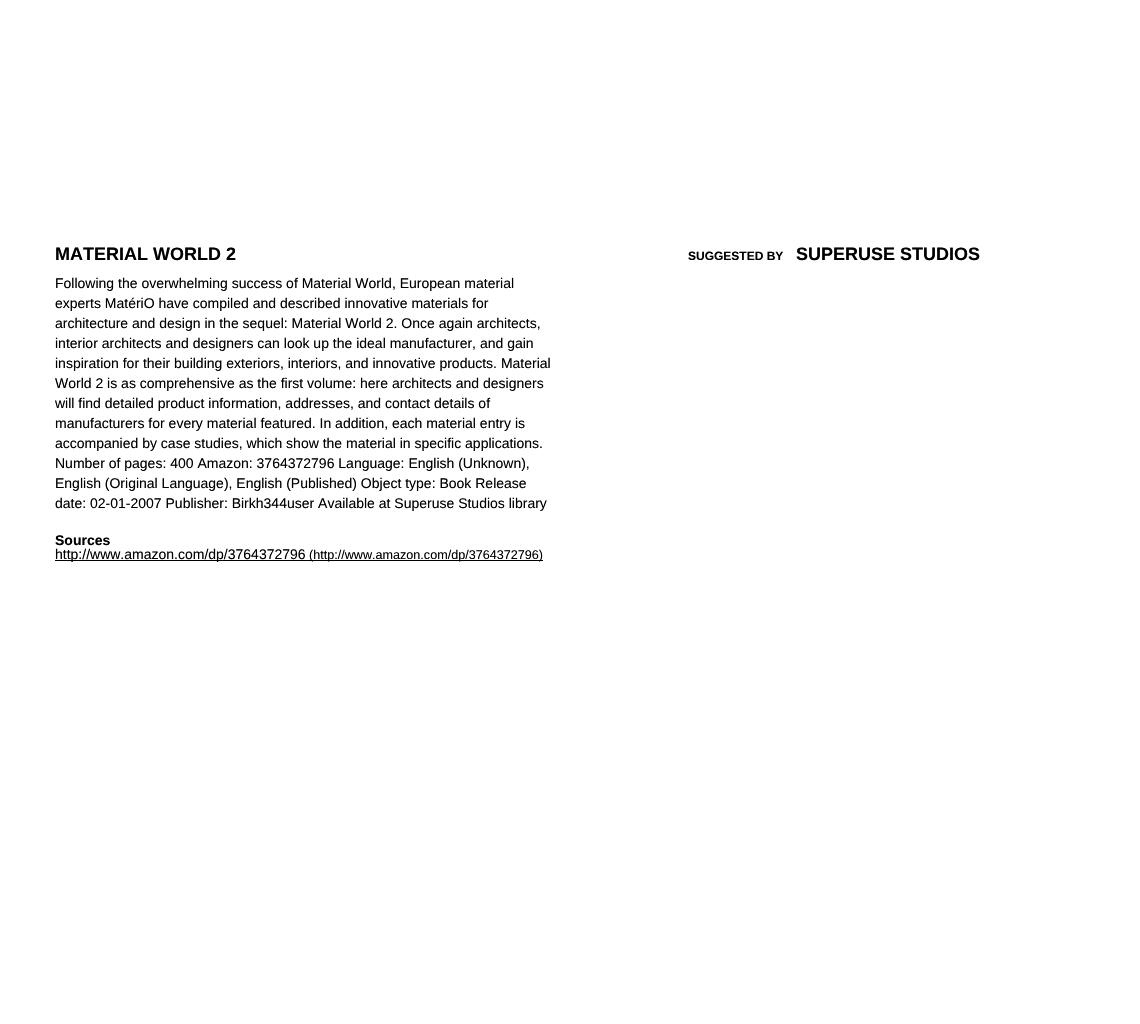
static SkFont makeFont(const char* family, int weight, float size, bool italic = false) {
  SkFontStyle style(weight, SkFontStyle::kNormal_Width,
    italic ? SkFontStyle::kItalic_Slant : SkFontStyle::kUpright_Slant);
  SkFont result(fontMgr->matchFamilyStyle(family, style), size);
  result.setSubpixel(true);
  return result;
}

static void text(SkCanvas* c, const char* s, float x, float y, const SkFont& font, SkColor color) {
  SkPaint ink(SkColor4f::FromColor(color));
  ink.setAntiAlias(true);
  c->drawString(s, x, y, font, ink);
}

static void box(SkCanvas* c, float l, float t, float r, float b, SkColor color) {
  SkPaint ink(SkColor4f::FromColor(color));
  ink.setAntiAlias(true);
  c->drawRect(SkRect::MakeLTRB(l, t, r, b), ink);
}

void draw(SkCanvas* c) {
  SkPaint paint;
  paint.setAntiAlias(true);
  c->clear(0xffffffff);
  SkFont face1 = makeFont("Liberation Sans", 700, 18);
  text(c, "MATERIAL WORLD 2", 55, 260, face1, 0xff000000);
  SkFont face2 = makeFont("Liberation Sans", 700, 12);
  text(c, "SUGGESTED BY", 688, 260, face2, 0xff000000);
  text(c, "SUPERUSE STUDIOS", 796, 260, face1, 0xff000000);
  SkFont face3 = makeFont("Liberation Sans", 400, 14);
  text(c, "Following the overwhelming success of Material World, European material", 55, 288, face3, 0xff000000);
  text(c, "experts MatériO have compiled and described innovative materials for", 55, 308, face3, 0xff000000);
  text(c, "architecture and design in the sequel: Material World 2. Once again architects,", 55, 328, face3, 0xff000000);
  text(c, "interior architects and designers can look up the ideal manufacturer, and gain", 55, 348, face3, 0xff000000);
  text(c, "inspiration for their building exteriors, interiors, and innovative products. Material", 55, 368, face3, 0xff000000);
  text(c, "World 2 is as comprehensive as the first volume: here architects and designers", 55, 388, face3, 0xff000000);
  text(c, "will find detailed product information, addresses, and contact details of", 55, 408, face3, 0xff000000);
  text(c, "manufacturers for every material featured. In addition, each material entry is", 55, 428, face3, 0xff000000);
  text(c, "accompanied by case studies, which show the material in specific applications.", 55, 448, face3, 0xff000000);
  text(c, "Number of pages: 400 Amazon: 3764372796 Language: English (Unknown),", 55, 468, face3, 0xff000000);
  text(c, "English (Original Language), English (Published) Object type: Book Release", 55, 488, face3, 0xff000000);
  text(c, "date: 02-01-2007 Publisher: Birkh344user Available at Superuse Studios library", 55, 508, face3, 0xff000000);
  SkFont face4 = makeFont("Liberation Sans", 700, 14);
  text(c, "Sources", 55, 545, face4, 0xff000000);
  box(c, 55, 560, 543, 561, 0xff000000);
  text(c, "http://www.amazon.com/dp/3764372796", 55, 559, face3, 0xff000000);
  SkFont face5 = makeFont("Liberation Sans", 400, 12.6f);
  text(c, "(http://www.amazon.com/dp/3764372796)", 309, 559, face5, 0xff000000);
}
